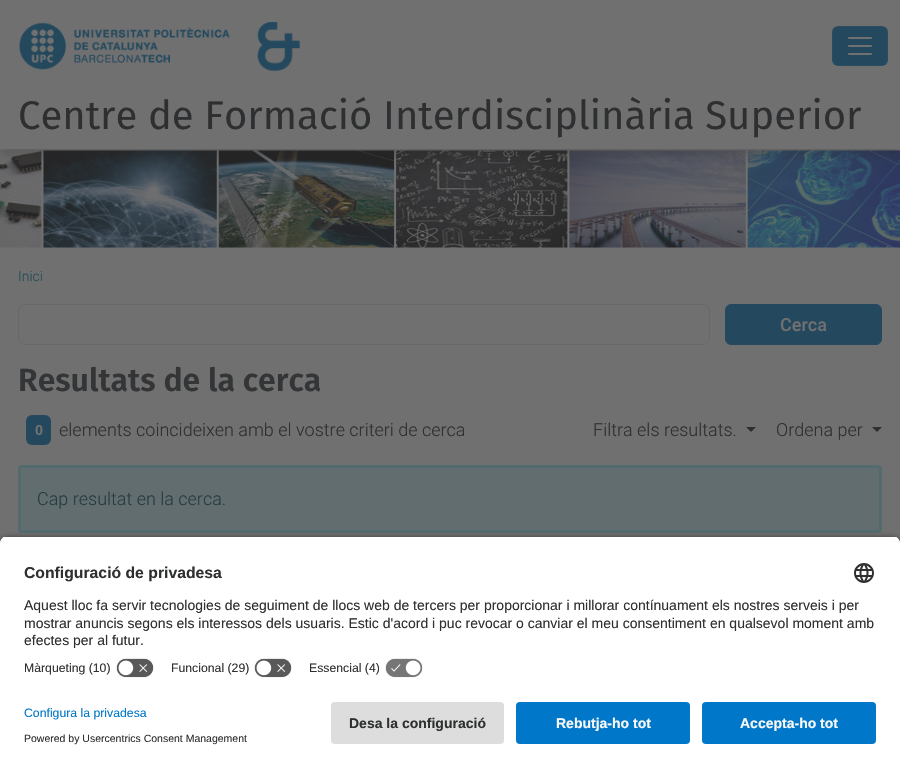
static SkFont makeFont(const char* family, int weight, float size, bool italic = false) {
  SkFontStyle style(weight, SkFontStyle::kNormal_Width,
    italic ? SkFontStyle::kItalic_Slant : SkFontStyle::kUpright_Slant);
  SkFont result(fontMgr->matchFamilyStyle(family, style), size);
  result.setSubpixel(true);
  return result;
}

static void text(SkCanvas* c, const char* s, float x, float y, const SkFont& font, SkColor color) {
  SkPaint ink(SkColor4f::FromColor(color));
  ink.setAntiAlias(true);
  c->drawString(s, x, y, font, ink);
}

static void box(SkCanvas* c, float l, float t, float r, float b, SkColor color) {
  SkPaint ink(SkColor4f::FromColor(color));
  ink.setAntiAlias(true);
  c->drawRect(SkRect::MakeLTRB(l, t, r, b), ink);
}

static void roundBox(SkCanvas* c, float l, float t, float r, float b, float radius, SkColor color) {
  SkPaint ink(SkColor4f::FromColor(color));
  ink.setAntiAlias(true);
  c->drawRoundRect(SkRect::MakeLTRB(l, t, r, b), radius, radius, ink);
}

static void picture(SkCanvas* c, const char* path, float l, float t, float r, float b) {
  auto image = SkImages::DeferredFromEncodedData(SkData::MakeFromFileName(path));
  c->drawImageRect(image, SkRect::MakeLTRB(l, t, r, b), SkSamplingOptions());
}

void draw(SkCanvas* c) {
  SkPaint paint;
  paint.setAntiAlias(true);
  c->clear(0xff707070);
  picture(c, "img_01.png", 19, 22, 230, 70);
  picture(c, "img_02.png", 257, 22, 300, 71);
  roundBox(c, 832, 26, 888, 66, 6, 0xff24495e);
  paint.setStyle(SkPaint::kStroke_Style);
  paint.setStrokeWidth(1);
  paint.setColor(0x1a707070);
  c->drawRoundRect(SkRect::MakeLTRB(832.5f, 26.5f, 887.5f, 65.5f), 5.5f, 5.5f, paint);
  picture(c, "img_03.png", 848, 37, 872, 55);
  picture(c, "img_04.png", 0, 150, 900, 248);
  c->save();
  c->clipRect(SkRect::MakeLTRB(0, 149, 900, 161));
  paint.setStyle(SkPaint::kFill_Style);
  paint.setColor(0x33242424);
  paint.setMaskFilter(SkMaskFilter::MakeBlur(kNormal_SkBlurStyle, 4));
  c->drawRect(SkRect::MakeLTRB(0, 99, 900, 156), paint);
  paint.setMaskFilter(nullptr);
  c->restore();
  SkFont face1 = makeFont("Fira Sans", 400, 40);
  text(c, "Centre de Formació Interdisciplinària Superior", 18, 129, face1, 0xff2e2f30);
  SkFont face2 = makeFont("Roboto", 300, 14);
  text(c, "Inici", 18, 281, face2, 0xff244959);
  paint.setStyle(SkPaint::kStroke_Style);
  paint.setColor(0xff666869);
  c->drawRoundRect(SkRect::MakeLTRB(18.5f, 304.5f, 709.5f, 344.5f), 6.5f, 6.5f, paint);
  paint.setStyle(SkPaint::kFill_Style);
  paint.setColor(0xff24495e);
  c->drawRoundRect(SkRect::MakeLTRB(725.5f, 304.5f, 881.5f, 344.5f), 5.5f, 5.5f, paint);
  paint.setStyle(SkPaint::kStroke_Style);
  c->drawRoundRect(SkRect::MakeLTRB(725.5f, 304.5f, 881.5f, 344.5f), 5.5f, 5.5f, paint);
  SkFont face3 = makeFont("Roboto", 500, 18);
  text(c, "Cerca", 780, 331, face3, 0xff707070);
  SkFont face4 = makeFont("Fira Sans", 600, 32);
  text(c, "Resultats de la cerca", 18, 391, face4, 0xff333537);
  roundBox(c, 26, 415, 51, 445, 6, 0xff24495e);
  SkFont face5 = makeFont("Roboto", 700, 14);
  text(c, "0", 35, 435, face5, 0xff707070);
  SkFont face6 = makeFont("Roboto", 300, 18);
  text(c, "elements coincideixen amb el vostre criteri de cerca", 59, 436, face6, 0xff2e2f30);
  text(c, "Filtra els resultats.", 593, 436, face6, 0xff2e2f30);
  paint.setStyle(SkPaint::kFill_Style);
  paint.setColor(0xff2e2f30);
  c->drawPath(SkPathBuilder().moveTo(746, 427).lineTo(756, 427).lineTo(751, 432).close().detach(), paint);
  text(c, "Ordena per", 776, 436, face6, 0xff2e2f30);
  c->drawPath(SkPathBuilder().moveTo(872, 427).lineTo(882, 427).lineTo(877, 432).close().detach(), paint);
  paint.setColor(0xff626d6f);
  c->drawRoundRect(SkRect::MakeLTRB(19.5f, 466.5f, 880.5f, 531.5f), 2.5f, 2.5f, paint);
  paint.setStyle(SkPaint::kStroke_Style);
  paint.setStrokeWidth(3);
  paint.setColor(0xff536a6e);
  c->drawRoundRect(SkRect::MakeLTRB(19.5f, 466.5f, 880.5f, 531.5f), 2.5f, 2.5f, paint);
  text(c, "Cap resultat en la cerca.", 37, 505, face6, 0xff253c41);
  paint.setStyle(SkPaint::kFill_Style);
  paint.setColor(0xcc000000);
  paint.setMaskFilter(SkMaskFilter::MakeBlur(kNormal_SkBlurStyle, 3.5f));
  c->drawRoundRect(SkRect::MakeLTRB(0, 539, 900, 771), 8, 8, paint);
  paint.setMaskFilter(nullptr);
  c->save();
  c->clipPath(SkPathBuilder().moveTo(8, 536).lineTo(892, 536).cubicTo(896.5f, 536, 900, 539.5f, 900, 544).lineTo(900, 694).lineTo(0, 694).lineTo(0, 544).cubicTo(0, 539.5f, 3.5f, 536, 8, 536).close().detach(), true);
  box(c, 0, 537, 900, 694, 0xffffffff);
  box(c, 0, 537, 900, 654, 0xffffffff);
  c->restore();
  SkFont face7 = makeFont("Liberation Sans", 700, 15.75f);
  text(c, "Configuració de privadesa", 24, 578, face7, 0xff2e2f30);
  picture(c, "img_05.png", 854, 563, 874, 583);
  SkFont face8 = makeFont("Liberation Sans", 400, 14);
  text(c, "Aquest lloc fa servir tecnologies de seguiment de llocs web de tercers per proporcionar i millorar contínuament els nostres serveis i per", 24, 610, face8, 0xff2e2f30);
  text(c, "mostrar anuncis segons els interessos dels usuaris. Estic d'acord i puc revocar o canviar el meu consentiment en qualsevol moment amb", 24, 628, face8, 0xff2e2f30);
  text(c, "efectes per al futur.", 24, 645, face8, 0xff2e2f30);
  SkFont face9 = makeFont("Liberation Sans", 400, 12.25f);
  text(c, "Màrqueting (10)", 24, 672, face9, 0xff2e2f30);
  picture(c, "img_06.png", 116, 658, 154, 678);
  text(c, "Funcional (29)", 171, 672, face9, 0xff2e2f30);
  picture(c, "img_06.png", 254, 658, 292, 678);
  text(c, "Essencial (4)", 309, 672, face9, 0xff2e2f30);
  picture(c, "img_07.png", 385, 658, 423, 678);
  box(c, 0, 694, 900, 768, 0xffffffff);
  text(c, "Configura la privadesa", 24, 717, face9, 0xff0077c8);
  SkFont face10 = makeFont("Liberation Sans", 400, 10.5f);
  text(c, "Powered by Usercentrics Consent Management", 24, 742, face10, 0xff2e2f30);
  roundBox(c, 331, 702, 504, 744, 4, 0xffdddddd);
  SkFont face11 = makeFont("Liberation Sans", 700, 14);
  text(c, "Desa la configuració", 349, 728, face11, 0xff2e2f30);
  roundBox(c, 516, 702, 690, 744, 4, 0xff0077c8);
  text(c, "Rebutja-ho tot", 556, 728, face11, 0xfffafafa);
  roundBox(c, 702, 702, 876, 744, 4, 0xff0077c8);
  text(c, "Accepta-ho tot", 740, 728, face11, 0xfffafafa);
}
